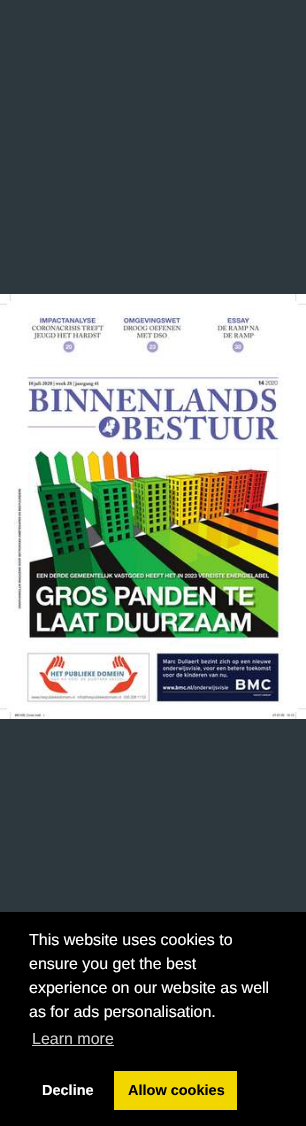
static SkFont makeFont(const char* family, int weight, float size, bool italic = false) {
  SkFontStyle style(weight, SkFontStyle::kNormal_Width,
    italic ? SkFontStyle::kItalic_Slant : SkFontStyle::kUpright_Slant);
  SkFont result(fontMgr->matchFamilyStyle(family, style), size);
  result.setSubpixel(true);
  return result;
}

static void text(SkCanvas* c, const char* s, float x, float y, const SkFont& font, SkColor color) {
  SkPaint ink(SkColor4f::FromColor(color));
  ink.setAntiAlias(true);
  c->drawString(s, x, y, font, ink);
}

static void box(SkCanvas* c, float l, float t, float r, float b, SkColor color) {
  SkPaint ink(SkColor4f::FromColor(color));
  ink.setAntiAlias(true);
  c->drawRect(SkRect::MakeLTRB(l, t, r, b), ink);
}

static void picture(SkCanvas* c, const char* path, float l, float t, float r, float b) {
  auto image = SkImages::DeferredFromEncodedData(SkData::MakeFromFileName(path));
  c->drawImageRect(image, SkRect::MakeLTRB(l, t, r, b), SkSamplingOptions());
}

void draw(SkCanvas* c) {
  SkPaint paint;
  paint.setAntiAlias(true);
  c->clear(0xff2d373e);
  picture(c, "img_01.png", 0, 294, 306, 719);
  box(c, 0, 912, 306, 1126, 0xff000000);
  SkFont face1 = makeFont("Liberation Sans", 400, 16);
  text(c, "This website uses cookies to", 29, 945, face1, 0xffffffff);
  text(c, "ensure you get the best", 29, 969, face1, 0xffffffff);
  text(c, "experience on our website as well", 29, 993, face1, 0xffffffff);
  text(c, "as for ads personalisation.", 29, 1017, face1, 0xffffffff);
  text(c, "Learn more", 32, 1044, face1, 0xffcccccc);
  box(c, 32, 1045, 114, 1046, 0xffcccccc);
  SkFont face2 = makeFont("Liberation Sans", 700, 14.5f);
  text(c, "Decline", 42, 1095, face2, 0xffffffff);
  box(c, 114, 1071, 237, 1110, 0xfff1d600);
  text(c, "Allow cookies", 128, 1095, face2, 0xff000000);
}
